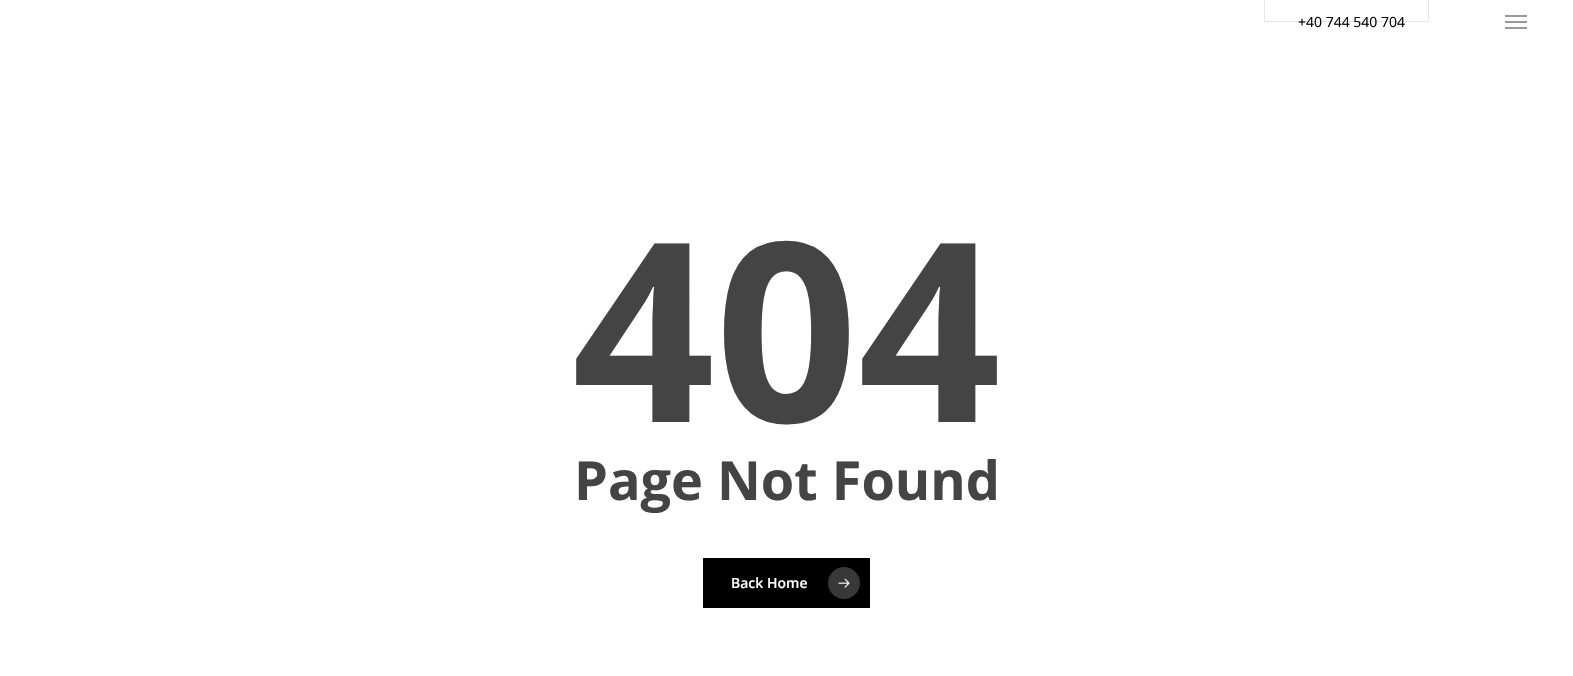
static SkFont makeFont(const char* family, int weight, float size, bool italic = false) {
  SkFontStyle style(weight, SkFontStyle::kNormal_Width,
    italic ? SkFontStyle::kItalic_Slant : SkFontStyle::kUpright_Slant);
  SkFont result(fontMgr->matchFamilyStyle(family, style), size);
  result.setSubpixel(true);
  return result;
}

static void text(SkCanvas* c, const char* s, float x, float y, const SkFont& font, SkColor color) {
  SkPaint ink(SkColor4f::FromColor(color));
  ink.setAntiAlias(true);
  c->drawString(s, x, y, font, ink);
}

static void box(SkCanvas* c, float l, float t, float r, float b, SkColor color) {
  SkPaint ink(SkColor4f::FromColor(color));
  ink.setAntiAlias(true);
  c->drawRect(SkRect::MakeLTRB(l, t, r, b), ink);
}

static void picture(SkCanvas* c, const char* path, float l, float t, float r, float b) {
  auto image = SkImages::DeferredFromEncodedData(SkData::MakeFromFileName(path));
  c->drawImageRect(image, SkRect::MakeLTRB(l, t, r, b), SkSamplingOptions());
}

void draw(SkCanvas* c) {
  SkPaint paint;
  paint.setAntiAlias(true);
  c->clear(0xffffffff);
  paint.setStyle(SkPaint::kStroke_Style);
  paint.setStrokeWidth(1);
  paint.setColor(0xffe6e6e6);
  c->drawRect(SkRect::MakeLTRB(1264.5f, -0.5f, 1428.5f, 21.5f), paint);
  SkFont face1 = makeFont("Open Sans", 400, 14);
  text(c, "+40 744 540 704", 1298, 27, face1, 0xff000000);
  box(c, 1505, 15, 1527, 17, 0xff999999);
  box(c, 1505, 27, 1527, 29, 0xff999999);
  box(c, 1505, 21, 1527, 23, 0xff999999);
  SkFont face2 = makeFont("Open Sans", 700, 250);
  text(c, "404", 572, 422, face2, 0xff444444);
  SkFont face3 = makeFont("Open Sans", 700, 54);
  text(c, "Page Not Found", 574, 500, face3, 0xff444444);
  box(c, 703, 558, 870, 608, 0xff000000);
  SkFont face4 = makeFont("Open Sans", 600, 14);
  text(c, "Back Home", 731, 588, face4, 0xffffffff);
  paint.setStyle(SkPaint::kFill_Style);
  paint.setColor(0xff383838);
  c->drawCircle(844, 583, 16, paint);
  picture(c, "img_01.png", 838, 578, 850, 588);
}
